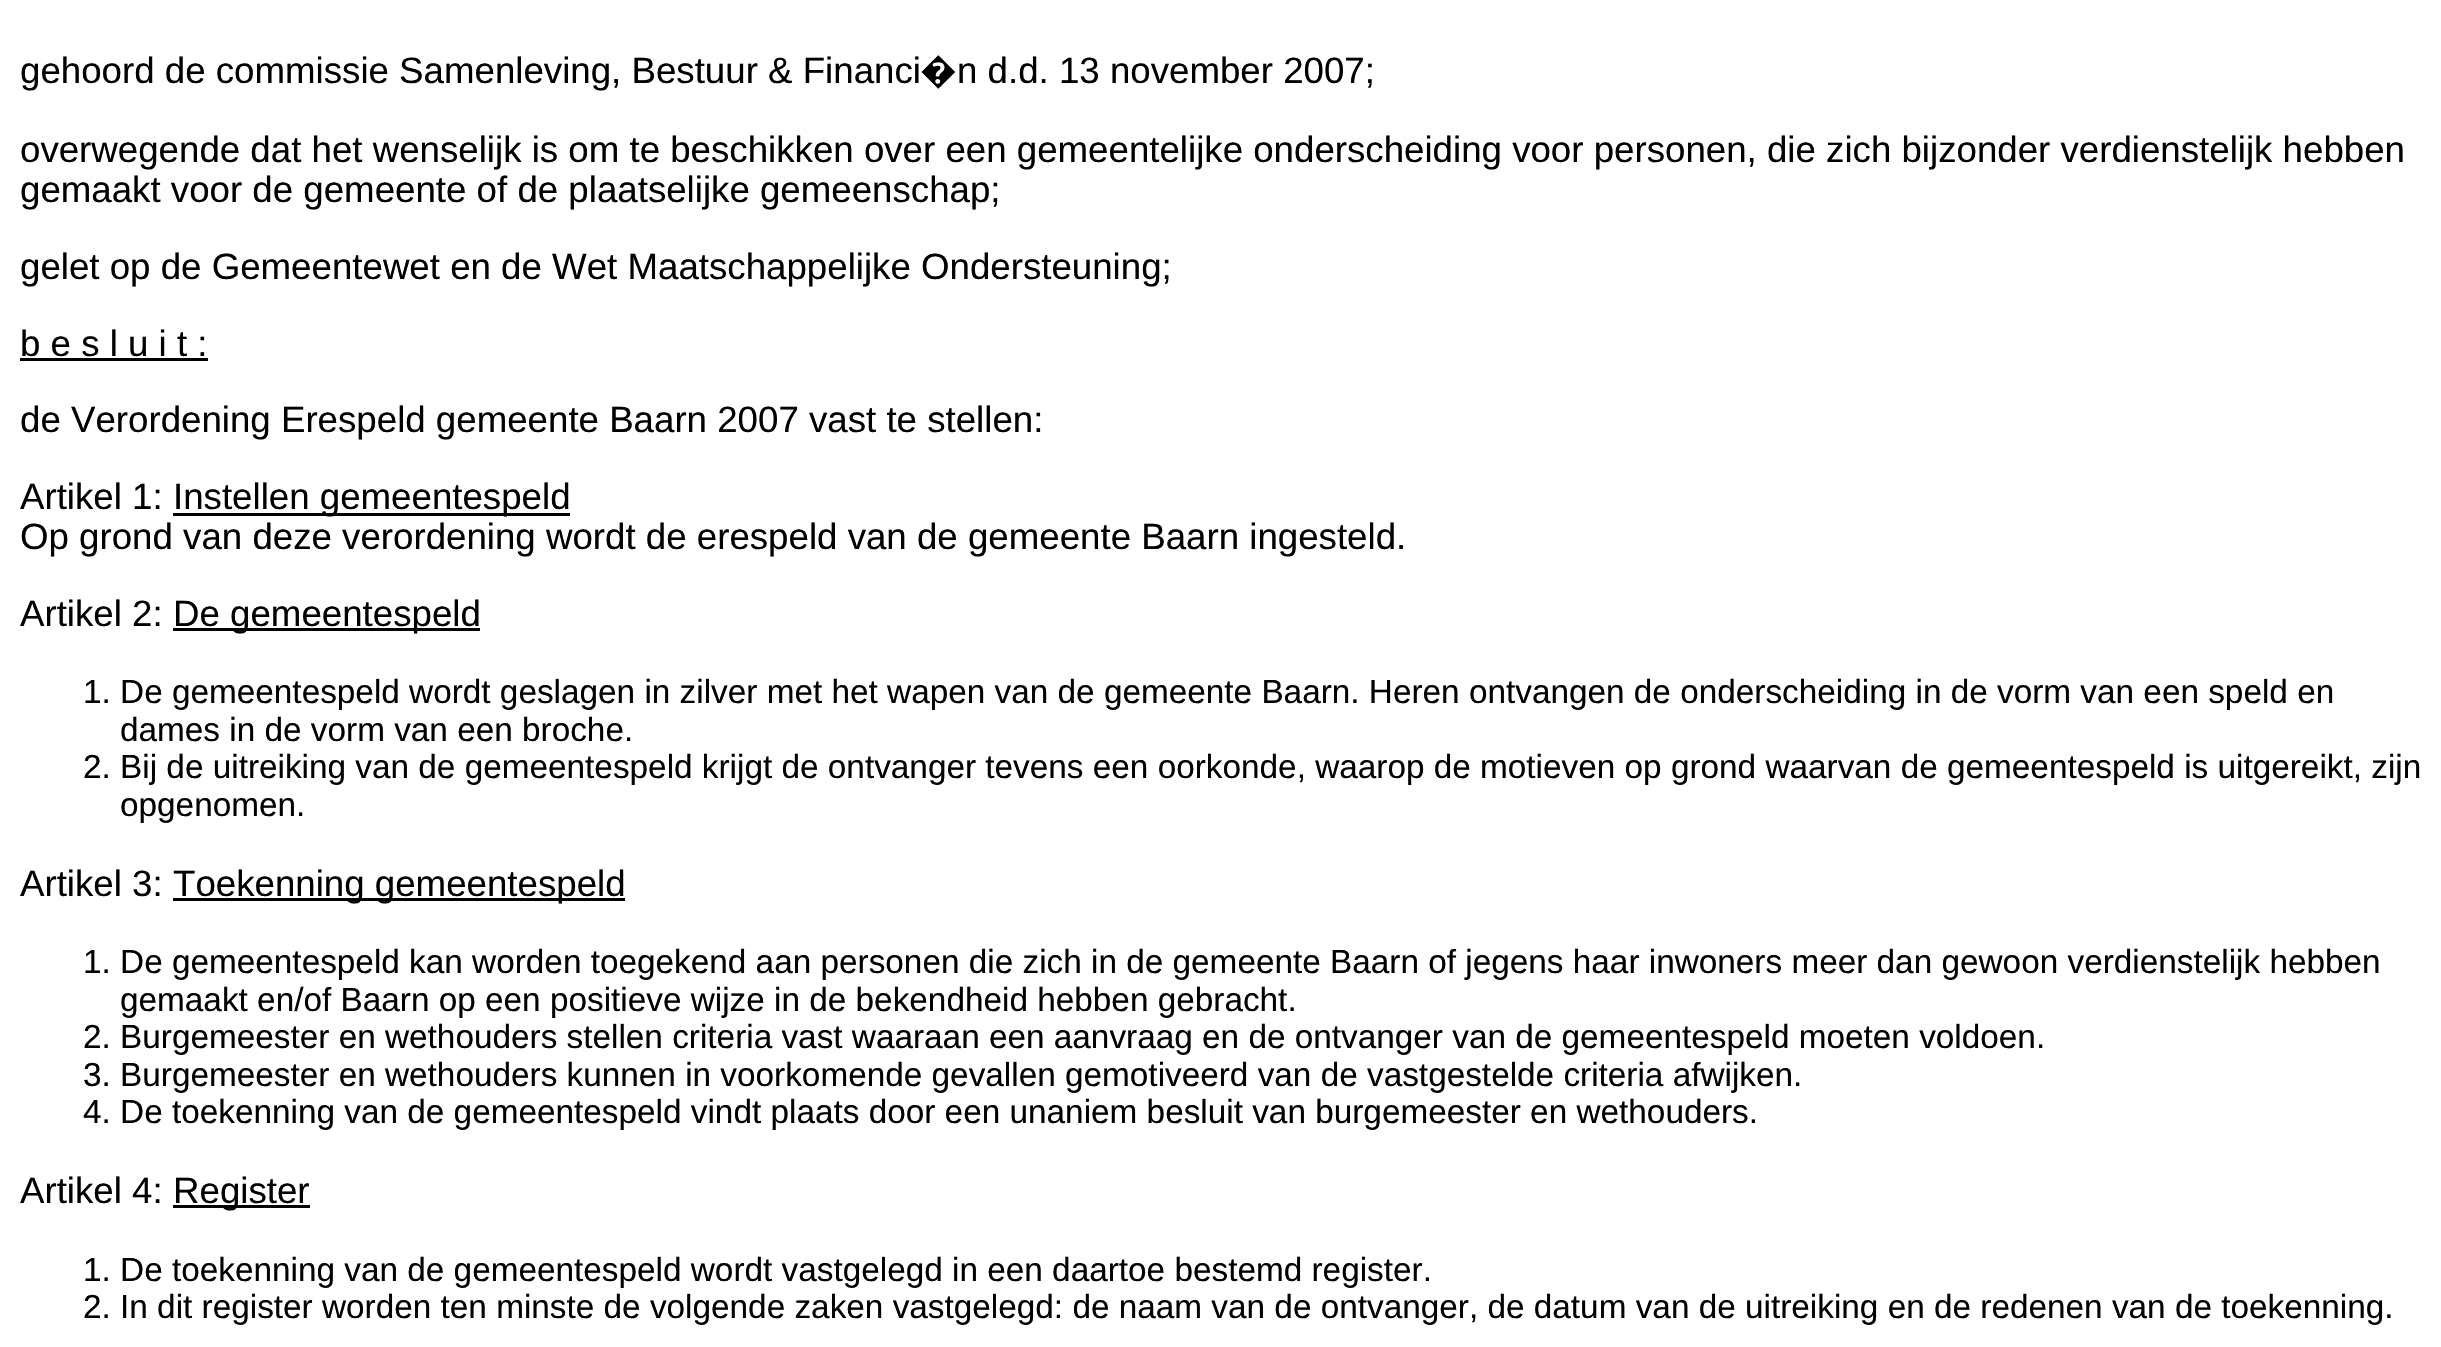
static SkFont makeFont(const char* family, int weight, float size, bool italic = false) {
  SkFontStyle style(weight, SkFontStyle::kNormal_Width,
    italic ? SkFontStyle::kItalic_Slant : SkFontStyle::kUpright_Slant);
  SkFont result(fontMgr->matchFamilyStyle(family, style), size);
  result.setSubpixel(true);
  return result;
}

static void text(SkCanvas* c, const char* s, float x, float y, const SkFont& font, SkColor color) {
  SkPaint ink(SkColor4f::FromColor(color));
  ink.setAntiAlias(true);
  c->drawString(s, x, y, font, ink);
}

static void box(SkCanvas* c, float l, float t, float r, float b, SkColor color) {
  SkPaint ink(SkColor4f::FromColor(color));
  ink.setAntiAlias(true);
  c->drawRect(SkRect::MakeLTRB(l, t, r, b), ink);
}

void draw(SkCanvas* c) {
  SkPaint paint;
  paint.setAntiAlias(true);
  c->clear(0xffffffff);
  SkFont face1 = makeFont("Liberation Sans", 400, 36.67f);
  text(c, "gehoord de commissie Samenleving, Bestuur & Financi", 20, 83, face1, 0xff000000);
  SkFont face2 = makeFont("Noto Sans", 400, 36.67f);
  text(c, "�", 920, 83, face2, 0xff000000);
  text(c, "n d.d. 13 november 2007;", 957, 83, face1, 0xff000000);
  text(c, "overwegende dat het wenselijk is om te beschikken over een gemeentelijke onderscheiding voor personen, die zich bijzonder verdienstelijk hebben", 20, 162, face1, 0xff000000);
  text(c, "gemaakt voor de gemeente of de plaatselijke gemeenschap;", 20, 202, face1, 0xff000000);
  text(c, "gelet op de Gemeentewet en de Wet Maatschappelijke Ondersteuning;", 20, 279, face1, 0xff000000);
  text(c, "b e s l u i t :", 20, 356, face1, 0xff000000);
  box(c, 20, 358, 208, 361, 0xff000000);
  text(c, "de Verordening Erespeld gemeente Baarn 2007 vast te stellen:", 20, 432, face1, 0xff000000);
  text(c, "Artikel 1:", 20, 509, face1, 0xff000000);
  box(c, 173, 513, 570, 516, 0xff000000);
  text(c, "Instellen gemeentespeld", 173, 509, face1, 0xff000000);
  text(c, "Op grond van deze verordening wordt de erespeld van de gemeente Baarn ingesteld.", 20, 549, face1, 0xff000000);
  text(c, "Artikel 2:", 20, 626, face1, 0xff000000);
  box(c, 173, 628, 480, 631, 0xff000000);
  text(c, "De gemeentespeld", 173, 626, face1, 0xff000000);
  SkFont face3 = makeFont("Liberation Sans", 400, 33.33f);
  text(c, "1. De gemeentespeld wordt geslagen in zilver met het wapen van de gemeente Baarn. Heren ontvangen de onderscheiding in de vorm van een speld en", 83, 703, face3, 0xff000000);
  text(c, "dames in de vorm van een broche.", 120, 741, face3, 0xff000000);
  text(c, "2. Bij de uitreiking van de gemeentespeld krijgt de ontvanger tevens een oorkonde, waarop de motieven op grond waarvan de gemeentespeld is uitgereikt, zijn", 83, 778, face3, 0xff000000);
  text(c, "opgenomen.", 120, 816, face3, 0xff000000);
  text(c, "Artikel 3:", 20, 896, face1, 0xff000000);
  box(c, 173, 898, 625, 901, 0xff000000);
  text(c, "Toekenning gemeentespeld", 173, 896, face1, 0xff000000);
  text(c, "1. De gemeentespeld kan worden toegekend aan personen die zich in de gemeente Baarn of jegens haar inwoners meer dan gewoon verdienstelijk hebben", 83, 973, face3, 0xff000000);
  text(c, "gemaakt en/of Baarn op een positieve wijze in de bekendheid hebben gebracht.", 120, 1011, face3, 0xff000000);
  text(c, "2. Burgemeester en wethouders stellen criteria vast waaraan een aanvraag en de ontvanger van de gemeentespeld moeten voldoen.", 83, 1048, face3, 0xff000000);
  text(c, "3. Burgemeester en wethouders kunnen in voorkomende gevallen gemotiveerd van de vastgestelde criteria afwijken.", 83, 1086, face3, 0xff000000);
  text(c, "4. De toekenning van de gemeentespeld vindt plaats door een unaniem besluit van burgemeester en wethouders.", 83, 1123, face3, 0xff000000);
  text(c, "Artikel 4:", 20, 1203, face1, 0xff000000);
  box(c, 173, 1205, 310, 1208, 0xff000000);
  text(c, "Register", 173, 1203, face1, 0xff000000);
  text(c, "1. De toekenning van de gemeentespeld wordt vastgelegd in een daartoe bestemd register.", 83, 1281, face3, 0xff000000);
  text(c, "2. In dit register worden ten minste de volgende zaken vastgelegd: de naam van de ontvanger, de datum van de uitreiking en de redenen van de toekenning.", 83, 1318, face3, 0xff000000);
}
